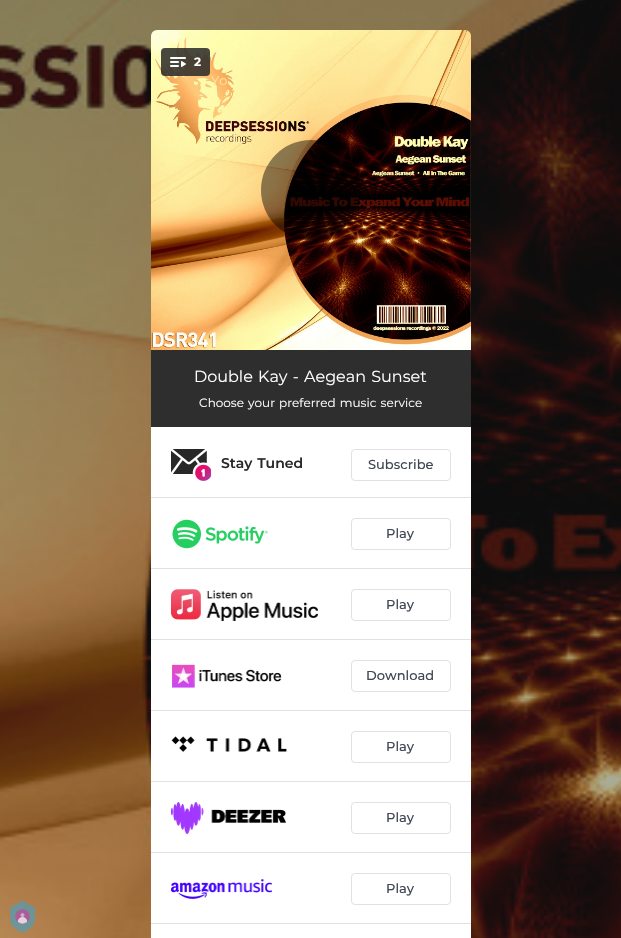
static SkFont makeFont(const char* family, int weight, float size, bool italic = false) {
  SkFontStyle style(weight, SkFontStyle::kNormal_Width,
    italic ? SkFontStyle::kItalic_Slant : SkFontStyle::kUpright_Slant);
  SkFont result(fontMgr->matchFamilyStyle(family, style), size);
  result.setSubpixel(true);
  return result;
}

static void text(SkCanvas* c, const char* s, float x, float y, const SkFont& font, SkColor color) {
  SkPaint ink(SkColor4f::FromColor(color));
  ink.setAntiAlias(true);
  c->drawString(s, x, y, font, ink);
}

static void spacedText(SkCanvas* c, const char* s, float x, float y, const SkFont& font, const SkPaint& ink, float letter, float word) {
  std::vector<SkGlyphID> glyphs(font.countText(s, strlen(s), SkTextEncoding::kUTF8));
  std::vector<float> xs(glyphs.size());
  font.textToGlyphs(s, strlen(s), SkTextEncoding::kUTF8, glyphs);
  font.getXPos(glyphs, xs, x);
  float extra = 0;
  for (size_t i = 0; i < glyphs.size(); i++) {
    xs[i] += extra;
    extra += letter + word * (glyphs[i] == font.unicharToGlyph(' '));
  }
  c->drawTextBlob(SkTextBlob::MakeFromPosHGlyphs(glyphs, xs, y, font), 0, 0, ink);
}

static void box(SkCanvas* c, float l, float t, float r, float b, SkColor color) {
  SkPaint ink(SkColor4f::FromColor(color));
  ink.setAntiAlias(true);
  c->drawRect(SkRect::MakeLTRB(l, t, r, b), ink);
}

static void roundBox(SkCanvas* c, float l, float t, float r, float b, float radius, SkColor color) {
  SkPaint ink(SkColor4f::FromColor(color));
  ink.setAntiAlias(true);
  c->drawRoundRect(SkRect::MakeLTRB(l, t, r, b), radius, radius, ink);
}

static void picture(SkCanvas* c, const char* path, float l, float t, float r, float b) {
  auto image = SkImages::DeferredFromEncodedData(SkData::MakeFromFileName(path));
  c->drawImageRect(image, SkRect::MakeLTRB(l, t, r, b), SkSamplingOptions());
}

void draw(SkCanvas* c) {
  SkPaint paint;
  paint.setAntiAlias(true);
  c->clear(0xffffffff);
  picture(c, "img_01.png", 0, 0, 621, 938);
  picture(c, "img_02.png", 151, 30, 471, 350);
  roundBox(c, 161, 48, 210, 76, 4, 0xd9282828);
  picture(c, "img_03.png", 170, 57, 186, 67);
  SkFont face1 = makeFont("Montserrat", 700, 12);
  text(c, "2", 194, 66, face1, 0xffffffff);
  paint.setColor(0x73000000);
  c->drawCircle(311, 190, 50, paint);
  SkFont face2 = makeFont("Montserrat", 400, 13);
  paint.setColor(0xfffde597);
  spacedText(c, "Yo", 211, 85, face2, paint, 0, 1);
  box(c, 151, 350, 471, 427, 0xff2e2e2e);
  SkFont face3 = makeFont("Montserrat", 400, 16);
  paint.setColor(0xffffffff);
  spacedText(c, "Double Kay - Aegean Sunset", 194, 382, face3, paint, 0, 1);
  SkFont face4 = makeFont("Montserrat", 400, 12);
  spacedText(c, "Choose your preferred music service", 199, 407, face4, paint, 0, 1);
  box(c, 151, 427, 471, 938, 0xffffffff);
  box(c, 151, 497, 471, 498, 0xffe1e1e4);
  picture(c, "img_04.png", 171, 449, 211, 481);
  SkFont face5 = makeFont("Montserrat", 600, 14);
  paint.setColor(0xff282828);
  spacedText(c, "Stay Tuned", 221, 468, face5, paint, 0, 1);
  paint.setStyle(SkPaint::kStroke_Style);
  paint.setStrokeWidth(1);
  paint.setColor(0xffe1e1e4);
  c->drawRoundRect(SkRect::MakeLTRB(351.5f, 449.5f, 450.5f, 480.5f), 3.5f, 3.5f, paint);
  SkFont face6 = makeFont("Montserrat", 500, 13);
  text(c, "Subscribe", 368, 469, face6, 0xff414754);
  box(c, 151, 568, 471, 569, 0xffe1e1e4);
  picture(c, "img_05.png", 172, 519, 268, 549);
  c->drawRoundRect(SkRect::MakeLTRB(351.5f, 518.5f, 450.5f, 549.5f), 3.5f, 3.5f, paint);
  text(c, "Play", 386, 538, face6, 0xff414754);
  box(c, 151, 639, 471, 640, 0xffe1e1e4);
  picture(c, "img_06.png", 171, 589, 318, 621);
  c->drawRoundRect(SkRect::MakeLTRB(351.5f, 589.5f, 450.5f, 620.5f), 3.5f, 3.5f, paint);
  text(c, "Play", 386, 609, face6, 0xff414754);
  box(c, 151, 710, 471, 711, 0xffe1e1e4);
  picture(c, "img_07.png", 172, 664, 282, 688);
  c->drawRoundRect(SkRect::MakeLTRB(351.5f, 660.5f, 450.5f, 691.5f), 3.5f, 3.5f, paint);
  text(c, "Download", 366, 680, face6, 0xff414754);
  box(c, 151, 781, 471, 782, 0xffe1e1e4);
  picture(c, "img_08.png", 171, 736, 287, 752);
  c->drawRoundRect(SkRect::MakeLTRB(351.5f, 731.5f, 450.5f, 762.5f), 3.5f, 3.5f, paint);
  text(c, "Play", 386, 751, face6, 0xff414754);
  box(c, 151, 852, 471, 853, 0xffe1e1e4);
  picture(c, "img_09.png", 171, 802, 286, 834);
  c->drawRoundRect(SkRect::MakeLTRB(351.5f, 802.5f, 450.5f, 833.5f), 3.5f, 3.5f, paint);
  text(c, "Play", 386, 822, face6, 0xff414754);
  box(c, 151, 923, 471, 924, 0xffe1e1e4);
  picture(c, "img_10.png", 171, 879, 272, 899);
  c->drawRoundRect(SkRect::MakeLTRB(351.5f, 873.5f, 450.5f, 904.5f), 3.5f, 3.5f, paint);
  text(c, "Play", 386, 893, face6, 0xff414754);
  picture(c, "img_11.png", 10, 900, 35, 933);
}
